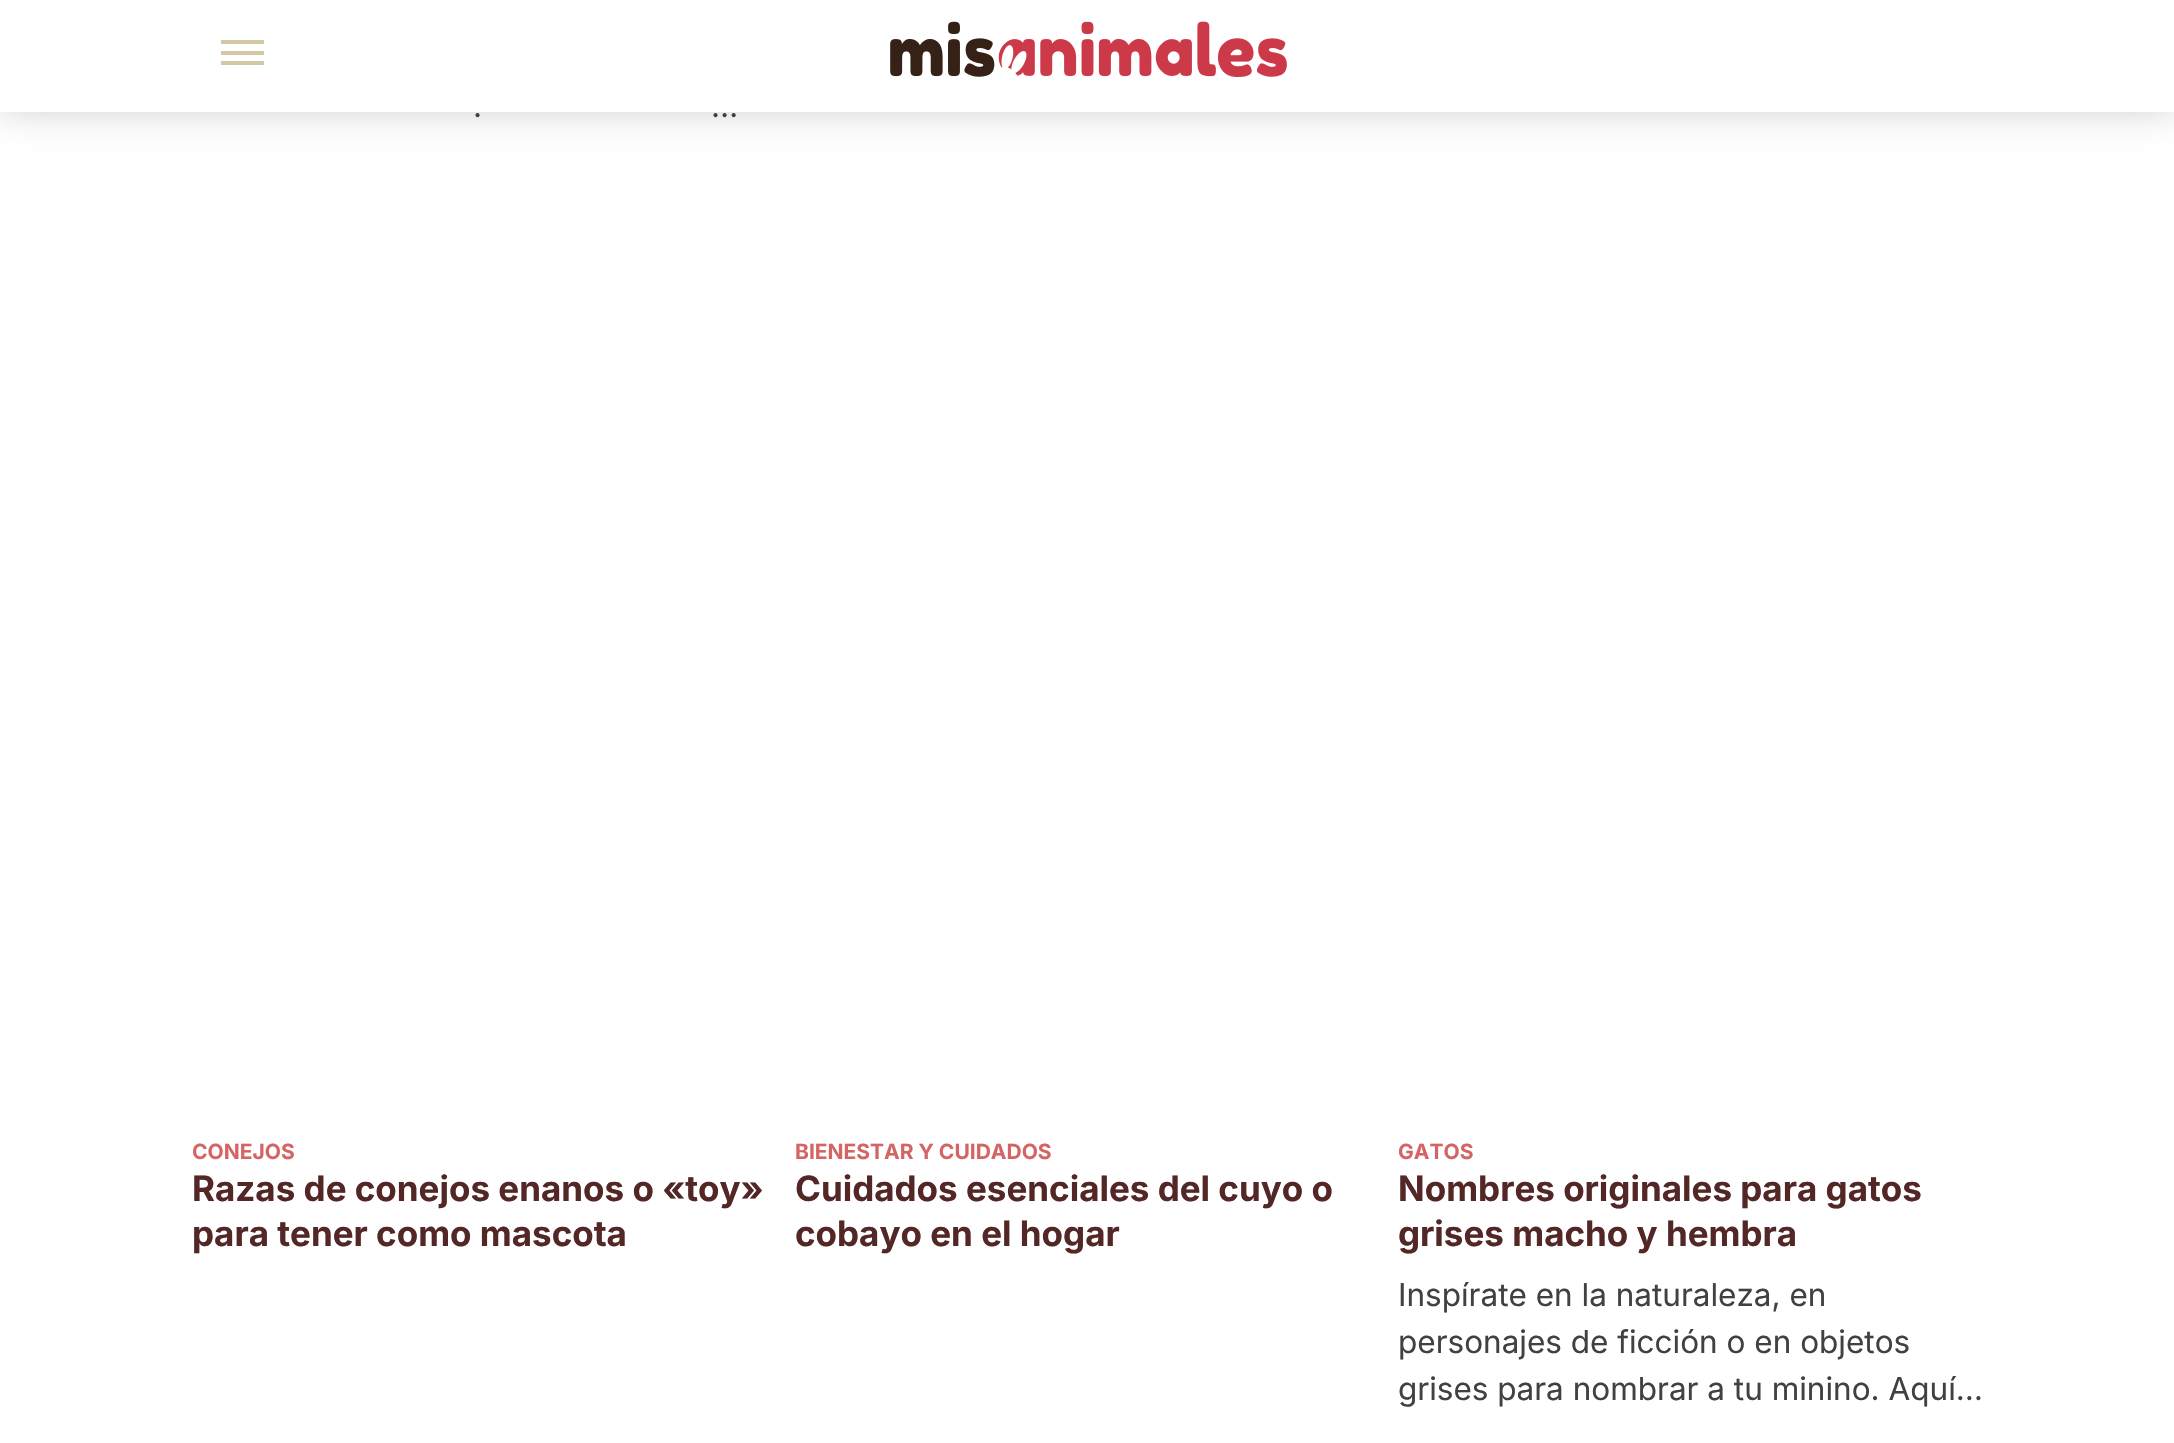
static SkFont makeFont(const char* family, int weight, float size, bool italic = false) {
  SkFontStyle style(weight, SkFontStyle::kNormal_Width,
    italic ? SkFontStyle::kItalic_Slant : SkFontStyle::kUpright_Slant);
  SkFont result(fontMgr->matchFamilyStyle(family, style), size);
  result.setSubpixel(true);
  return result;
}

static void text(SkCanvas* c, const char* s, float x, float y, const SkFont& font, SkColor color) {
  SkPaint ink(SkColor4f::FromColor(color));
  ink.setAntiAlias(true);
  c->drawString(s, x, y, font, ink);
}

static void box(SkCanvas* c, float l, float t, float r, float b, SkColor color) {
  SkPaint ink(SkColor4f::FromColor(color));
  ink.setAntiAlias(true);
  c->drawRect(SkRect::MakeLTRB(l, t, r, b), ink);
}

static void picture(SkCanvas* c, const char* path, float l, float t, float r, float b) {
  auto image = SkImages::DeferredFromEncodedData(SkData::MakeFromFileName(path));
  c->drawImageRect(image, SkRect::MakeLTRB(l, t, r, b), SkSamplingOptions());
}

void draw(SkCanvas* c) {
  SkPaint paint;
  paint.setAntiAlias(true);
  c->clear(0xffffffff);
  paint.setColor(0x40000000);
  paint.setMaskFilter(SkMaskFilter::MakeBlur(kNormal_SkBlurStyle, 21));
  c->drawRect(SkRect::MakeLTRB(0, -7, 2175, 105), paint);
  paint.setMaskFilter(nullptr);
  box(c, 0, 0, 2174, 112, 0xffffffff);
  box(c, 221, 40, 264, 44, 0xffd2c8a4);
  box(c, 221, 51, 264, 55, 0xffd2c8a4);
  box(c, 221, 61, 264, 65, 0xffd2c8a4);
  picture(c, "img_01.png", 890, 21, 1287, 77);
  SkFont face1 = makeFont("Inter", 400, 31.5f);
  text(c, ".", 473, 117, face1, 0xff414141);
  text(c, "…", 711, 117, face1, 0xff414141);
  SkFont face2 = makeFont("Inter", 700, 21);
  text(c, "CONEJOS", 192, 1159, face2, 0xffd46564);
  SkFont face3 = makeFont("Inter", 700, 35);
  text(c, "Razas de conejos enanos o «toy»", 192, 1201, face3, 0xff542727);
  text(c, "para tener como mascota", 192, 1246, face3, 0xff542727);
  text(c, "BIENESTAR Y CUIDADOS", 795, 1159, face2, 0xffd46564);
  text(c, "Cuidados esenciales del cuyo o", 795, 1201, face3, 0xff542727);
  text(c, "cobayo en el hogar", 795, 1246, face3, 0xff542727);
  text(c, "GATOS", 1398, 1159, face2, 0xffd46564);
  text(c, "Nombres originales para gatos", 1398, 1201, face3, 0xff542727);
  text(c, "grises macho y hembra", 1398, 1246, face3, 0xff542727);
  text(c, "Inspírate en la naturaleza, en", 1398, 1306, face1, 0xff414141);
  text(c, "personajes de ficción o en objetos", 1398, 1353, face1, 0xff414141);
  text(c, "grises para nombrar a tu minino. Aquí…", 1398, 1400, face1, 0xff414141);
}
